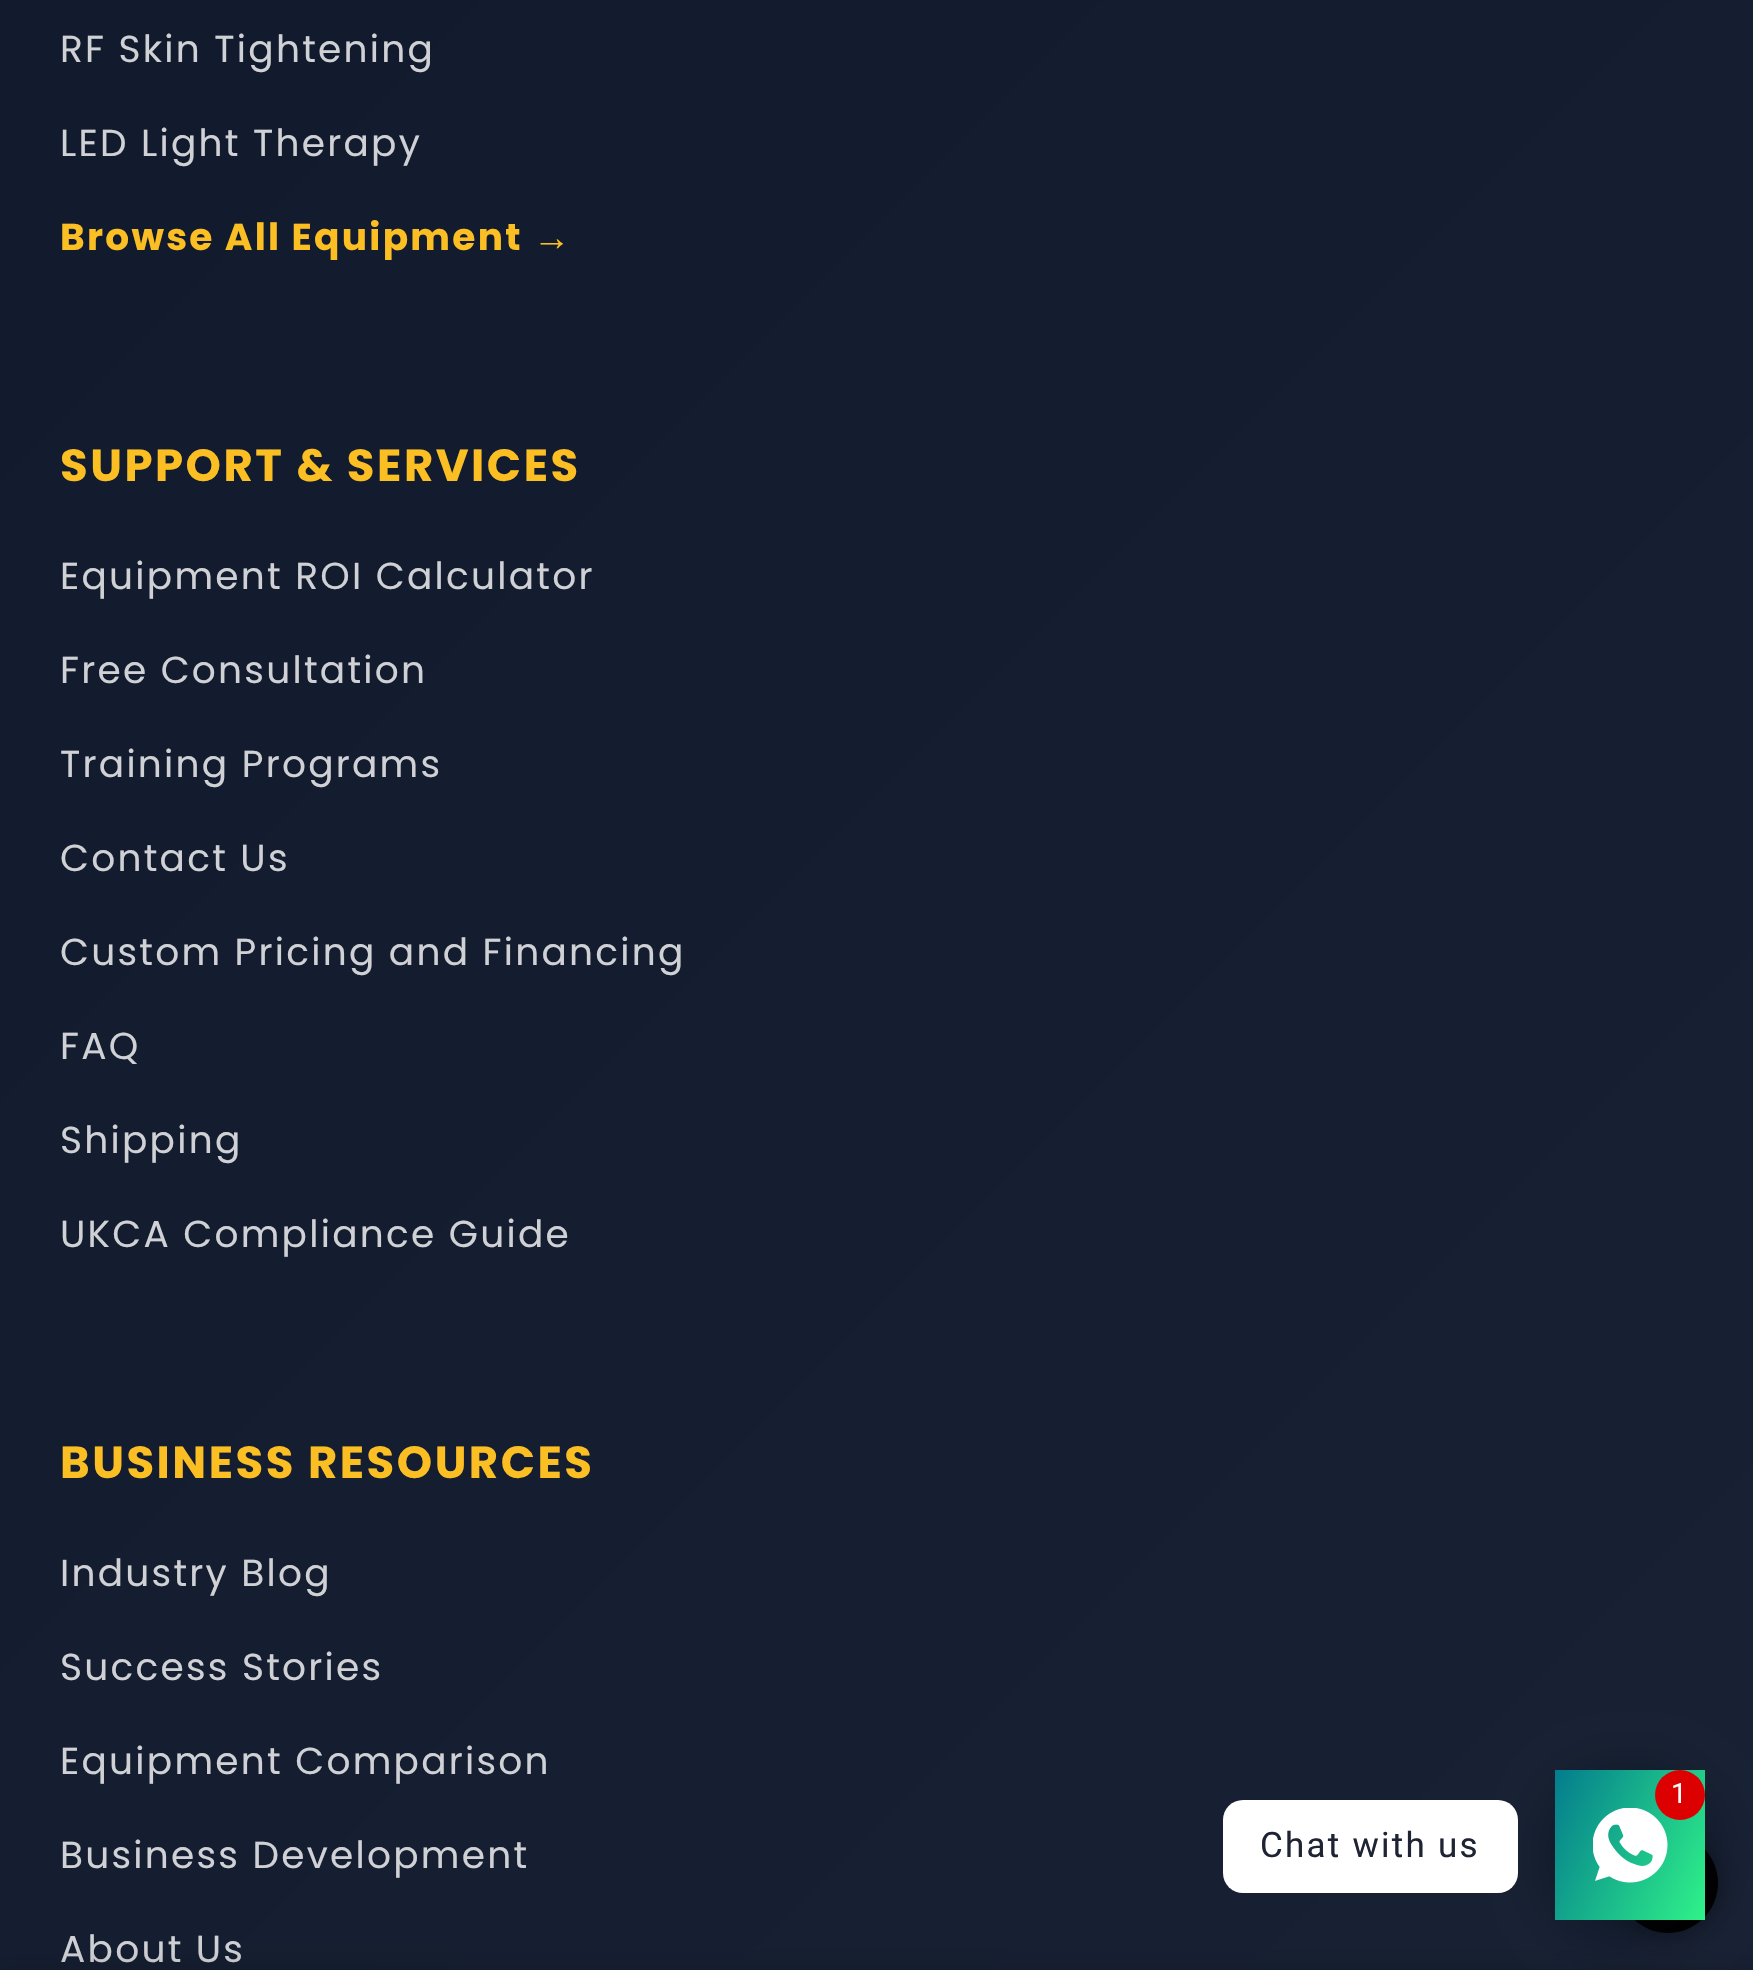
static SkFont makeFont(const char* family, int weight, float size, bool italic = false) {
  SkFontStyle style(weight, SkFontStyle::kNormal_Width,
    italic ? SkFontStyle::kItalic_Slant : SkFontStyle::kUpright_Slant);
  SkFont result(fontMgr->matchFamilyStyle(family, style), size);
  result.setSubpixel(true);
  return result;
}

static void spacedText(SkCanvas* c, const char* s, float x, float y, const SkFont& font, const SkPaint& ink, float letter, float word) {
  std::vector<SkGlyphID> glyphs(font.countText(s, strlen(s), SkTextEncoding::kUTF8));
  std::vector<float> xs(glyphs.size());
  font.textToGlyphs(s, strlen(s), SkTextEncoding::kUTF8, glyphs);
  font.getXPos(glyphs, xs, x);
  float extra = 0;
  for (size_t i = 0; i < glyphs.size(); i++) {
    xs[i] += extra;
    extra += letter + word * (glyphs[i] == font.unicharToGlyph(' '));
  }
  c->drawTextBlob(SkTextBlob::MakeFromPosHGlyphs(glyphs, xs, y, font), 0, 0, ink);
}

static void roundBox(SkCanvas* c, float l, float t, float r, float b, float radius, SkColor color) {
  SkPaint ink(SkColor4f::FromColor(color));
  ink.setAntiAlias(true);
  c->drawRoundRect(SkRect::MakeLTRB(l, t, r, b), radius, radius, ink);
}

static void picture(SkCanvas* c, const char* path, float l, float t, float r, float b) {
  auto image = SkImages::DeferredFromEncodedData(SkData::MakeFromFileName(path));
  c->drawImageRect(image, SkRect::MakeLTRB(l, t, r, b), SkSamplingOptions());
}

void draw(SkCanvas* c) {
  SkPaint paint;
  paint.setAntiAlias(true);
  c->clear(0xffffffff);
  {
    const SkColor colors[] = {0xff0f172a, 0xff1e293b};
    const float stops[] = {0, 1};
    const SkPoint ends[] = {{-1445, -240}, {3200, 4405}};
    paint.setShader(SkGradientShader::MakeLinear(ends, colors, stops, 2, SkTileMode::kClamp));
    paint.setAlpha(255);
  }
  c->drawRect(SkRect::MakeLTRB(0, 1, 1753, 1970), paint);
  {
    const SkColor colors[] = {0xff0f1728, 0xff1d2738};
    const float stops[] = {0, 1};
    const SkPoint ends[] = {{-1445, -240}, {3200, 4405}};
    paint.setShader(SkGradientShader::MakeLinear(ends, colors, stops, 2, SkTileMode::kClamp));
    paint.setAlpha(255);
  }
  c->drawRect(SkRect::MakeLTRB(0, 0, 1753, 1), paint);
  SkFont face1 = makeFont("Poppins", 400, 37.5f);
  paint.setShader(nullptr);
  paint.setColor(0xffd0d1d5);
  spacedText(c, "RF Skin Tightening", 60, 62, face1, paint, 2.25f, 0);
  spacedText(c, "LED Light Therapy", 60, 156, face1, paint, 2.25f, 0);
  SkFont face2 = makeFont("Poppins", 700, 37.5f);
  paint.setColor(0xfffbbf24);
  spacedText(c, "Browse All Equipment", 60, 250, face2, paint, 2.25f, 0);
  SkFont face3 = makeFont("Liberation Sans", 700, 37.5f);
  spacedText(c, "→", 533, 250, face3, paint, 2.25f, 0);
  SkFont face4 = makeFont("Poppins", 700, 45);
  spacedText(c, "SUPPORT & SERVICES", 60, 481, face4, paint, 2.5f, 0);
  paint.setColor(0xffd0d1d5);
  spacedText(c, "Equipment ROI Calculator", 60, 589, face1, paint, 2.25f, 0);
  spacedText(c, "Free Consultation", 60, 683, face1, paint, 2.25f, 0);
  spacedText(c, "Training Programs", 60, 777, face1, paint, 2.25f, 0);
  spacedText(c, "Contact Us", 60, 871, face1, paint, 2.25f, 0);
  spacedText(c, "Custom Pricing and Financing", 60, 965, face1, paint, 2.25f, 0);
  spacedText(c, "FAQ", 60, 1059, face1, paint, 2.25f, 0);
  spacedText(c, "Shipping", 60, 1153, face1, paint, 2.25f, 0);
  spacedText(c, "UKCA Compliance Guide", 60, 1247, face1, paint, 2.25f, 0);
  paint.setColor(0xfffbbf24);
  spacedText(c, "BUSINESS RESOURCES", 60, 1478, face4, paint, 2.5f, 0);
  paint.setColor(0xffd0d1d5);
  spacedText(c, "Industry Blog", 60, 1586, face1, paint, 2.25f, 0);
  spacedText(c, "Success Stories", 60, 1680, face1, paint, 2.25f, 0);
  spacedText(c, "Equipment Comparison", 60, 1774, face1, paint, 2.25f, 0);
  spacedText(c, "Business Development", 60, 1868, face1, paint, 2.25f, 0);
  spacedText(c, "About Us", 60, 1962, face1, paint, 2.25f, 0);
  paint.setColor(0x4d000000);
  paint.setMaskFilter(SkMaskFilter::MakeBlur(kNormal_SkBlurStyle, 12.5f));
  c->drawRoundRect(SkRect::MakeLTRB(1620, 1835, 1720, 1935), 50, 50, paint);
  paint.setMaskFilter(nullptr);
  paint.setColor(0x33000000);
  paint.setMaskFilter(SkMaskFilter::MakeBlur(kNormal_SkBlurStyle, 12.5f));
  c->drawRect(SkRect::MakeLTRB(0, 1968, 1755, 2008), paint);
  paint.setMaskFilter(nullptr);
  paint.setColor(0xff000000);
  c->drawCircle(1668, 1883, 50, paint);
  paint.setColor(0x80020610);
  paint.setMaskFilter(SkMaskFilter::MakeBlur(kNormal_SkBlurStyle, 30));
  c->drawRoundRect(SkRect::MakeLTRB(1555, 1780, 1705, 1930), 75, 75, paint);
  paint.setMaskFilter(nullptr);
  {
    const SkColor colors[] = {0xff047c8d, 0xff2ff289};
    const float stops[] = {0, 1};
    const SkPoint ends[] = {{1540, 1803}, {1720, 1887}};
    paint.setShader(SkGradientShader::MakeLinear(ends, colors, stops, 2, SkTileMode::kClamp));
    paint.setAlpha(255);
  }
  c->drawRect(SkRect::MakeLTRB(1555, 1770, 1705, 1920), paint);
  picture(c, "img_01.png", 1593, 1808, 1668, 1883);
  paint.setShader(nullptr);
  paint.setColor(0xffdd0000);
  c->drawCircle(1680, 1795, 25, paint);
  SkFont face5 = makeFont("Roboto", 400, 28);
  paint.setColor(0xffffffff);
  spacedText(c, "1", 1671, 1803, face5, paint, 2.25f, 0);
  roundBox(c, 1223, 1800, 1518, 1893, 20, 0xffffffff);
  SkFont face6 = makeFont("Roboto", 400, 35);
  paint.setColor(0xff1e2433);
  spacedText(c, "Chat with us", 1260, 1857, face6, paint, 2.25f, 0);
}
